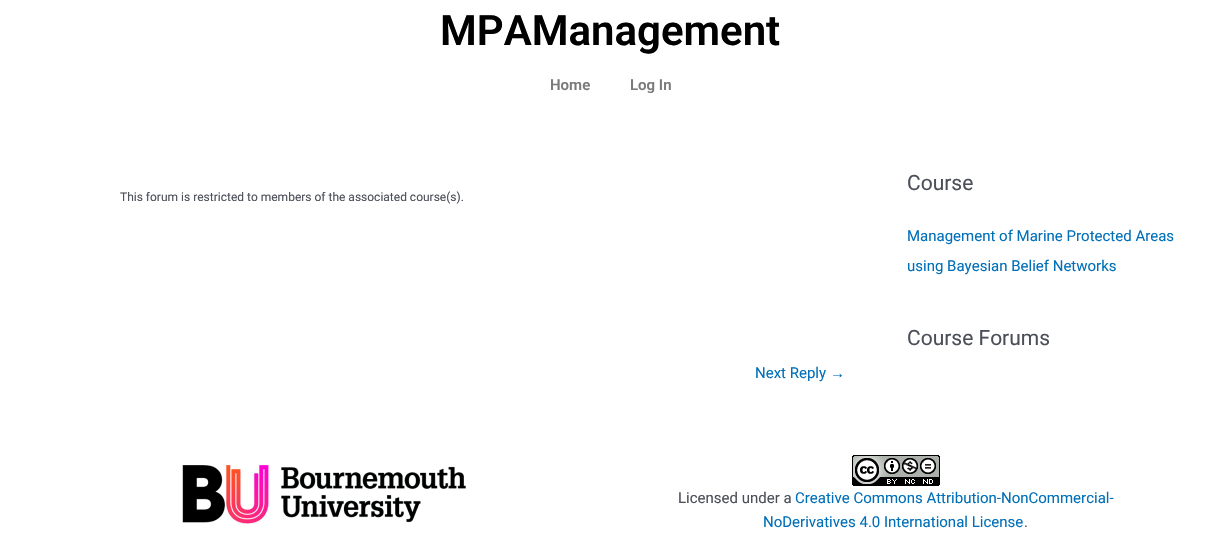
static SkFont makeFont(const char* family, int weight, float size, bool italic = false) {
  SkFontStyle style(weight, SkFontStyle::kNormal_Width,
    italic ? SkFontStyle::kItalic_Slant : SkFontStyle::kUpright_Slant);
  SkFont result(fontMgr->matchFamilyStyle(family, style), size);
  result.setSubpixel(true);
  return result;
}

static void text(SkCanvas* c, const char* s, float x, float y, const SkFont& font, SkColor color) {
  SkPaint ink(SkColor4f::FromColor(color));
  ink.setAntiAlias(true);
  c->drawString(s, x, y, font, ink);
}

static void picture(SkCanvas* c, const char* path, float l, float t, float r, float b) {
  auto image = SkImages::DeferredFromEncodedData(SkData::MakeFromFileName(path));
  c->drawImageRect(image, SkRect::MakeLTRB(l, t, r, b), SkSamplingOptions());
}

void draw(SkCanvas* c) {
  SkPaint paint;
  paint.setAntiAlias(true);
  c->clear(0xffffffff);
  SkFont face1 = makeFont("Roboto", 600, 42);
  text(c, "MPAManagement", 440, 45, face1, 0xff000000);
  SkFont face2 = makeFont("Roboto", 600, 15);
  text(c, "Home", 550, 90, face2, 0xff7a7a7a);
  text(c, "Log In", 630, 90, face2, 0xff7a7a7a);
  SkFont face3 = makeFont("Roboto", 400, 12);
  text(c, "This forum is restricted to members of the associated course(s).", 120, 201, face3, 0xff4b4f58);
  SkFont face4 = makeFont("Roboto", 400, 15);
  text(c, "Next Reply", 755, 378, face4, 0xff0170b9);
  SkFont face5 = makeFont("Liberation Sans", 400, 15);
  text(c, "→", 830, 378, face5, 0xff0170b9);
  SkFont face6 = makeFont("Roboto", 400, 21);
  text(c, "Course", 907, 190, face6, 0xff4b4f58);
  text(c, "Management of Marine Protected Areas", 907, 241, face4, 0xff0170b9);
  text(c, "using Bayesian Belief Networks", 907, 271, face4, 0xff0170b9);
  text(c, "Course Forums", 907, 345, face6, 0xff4b4f58);
  picture(c, "img_01.png", 182, 465, 466, 524);
  picture(c, "img_02.png", 852, 455, 940, 486);
  text(c, "Licensed under a", 678, 503, face4, 0xff4b4f58);
  text(c, "Creative Commons Attribution-NonCommercial-", 795, 503, face4, 0xff0170b9);
  text(c, "NoDerivatives 4.0 International License", 763, 527, face4, 0xff0170b9);
  text(c, ".", 1024, 527, face4, 0xff4b4f58);
}
